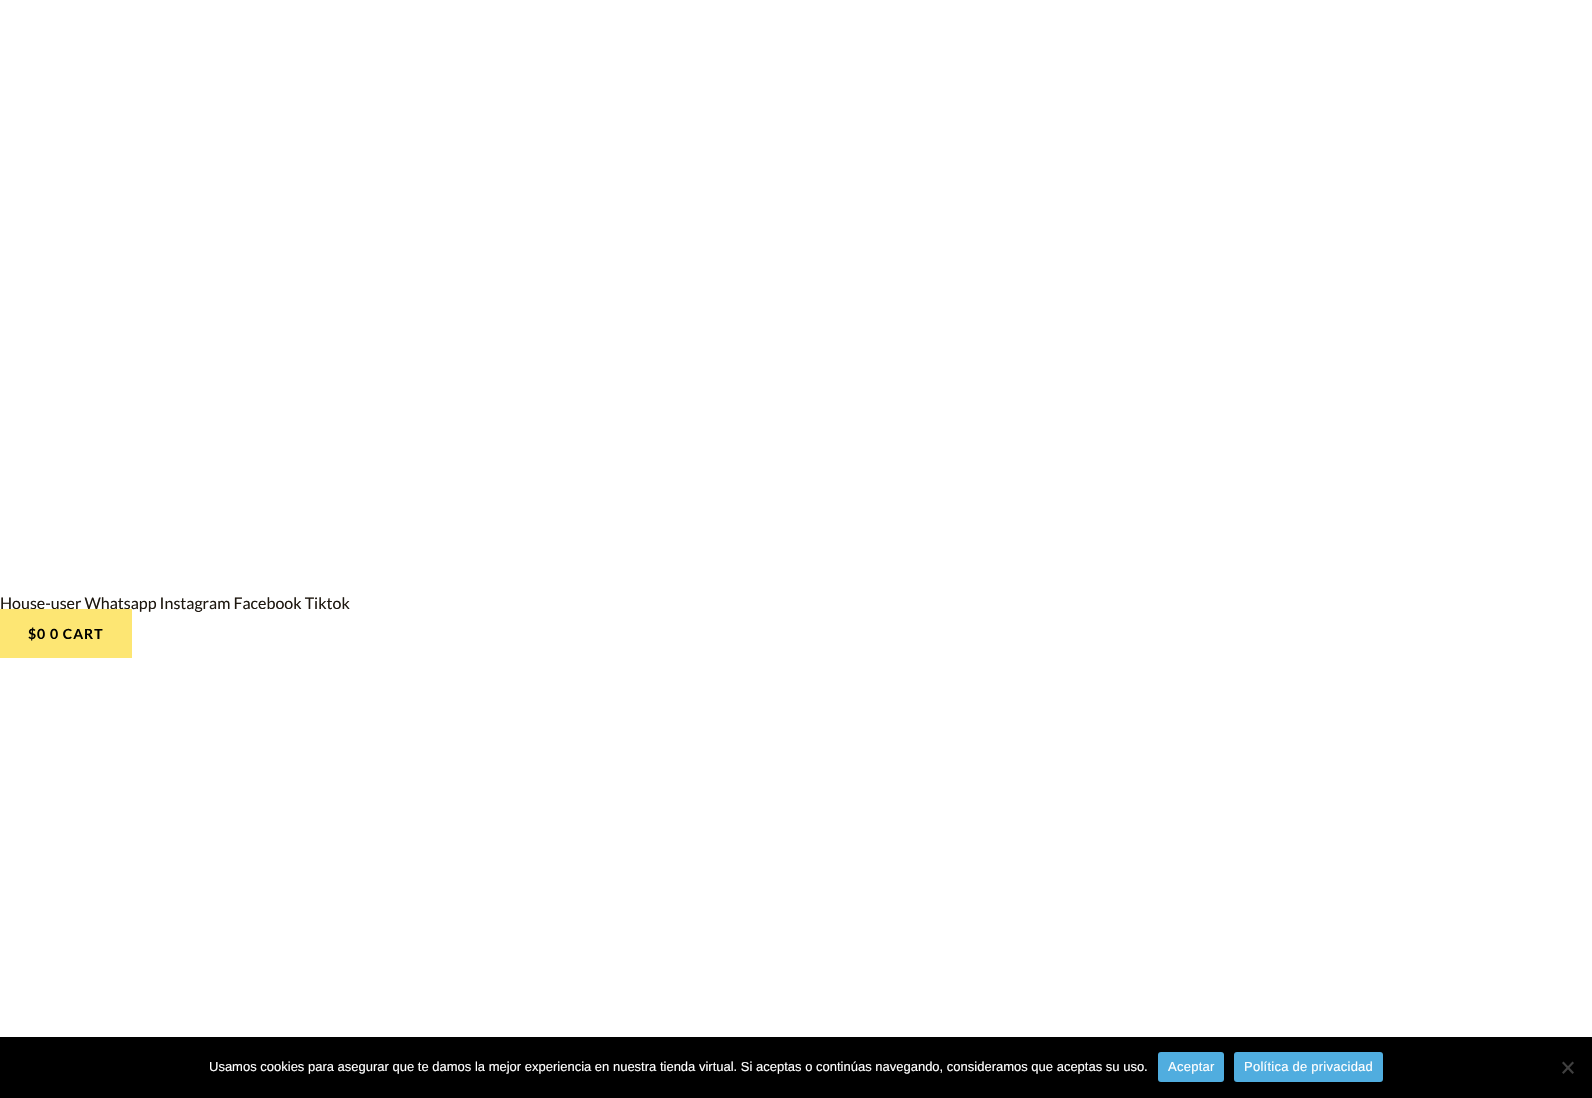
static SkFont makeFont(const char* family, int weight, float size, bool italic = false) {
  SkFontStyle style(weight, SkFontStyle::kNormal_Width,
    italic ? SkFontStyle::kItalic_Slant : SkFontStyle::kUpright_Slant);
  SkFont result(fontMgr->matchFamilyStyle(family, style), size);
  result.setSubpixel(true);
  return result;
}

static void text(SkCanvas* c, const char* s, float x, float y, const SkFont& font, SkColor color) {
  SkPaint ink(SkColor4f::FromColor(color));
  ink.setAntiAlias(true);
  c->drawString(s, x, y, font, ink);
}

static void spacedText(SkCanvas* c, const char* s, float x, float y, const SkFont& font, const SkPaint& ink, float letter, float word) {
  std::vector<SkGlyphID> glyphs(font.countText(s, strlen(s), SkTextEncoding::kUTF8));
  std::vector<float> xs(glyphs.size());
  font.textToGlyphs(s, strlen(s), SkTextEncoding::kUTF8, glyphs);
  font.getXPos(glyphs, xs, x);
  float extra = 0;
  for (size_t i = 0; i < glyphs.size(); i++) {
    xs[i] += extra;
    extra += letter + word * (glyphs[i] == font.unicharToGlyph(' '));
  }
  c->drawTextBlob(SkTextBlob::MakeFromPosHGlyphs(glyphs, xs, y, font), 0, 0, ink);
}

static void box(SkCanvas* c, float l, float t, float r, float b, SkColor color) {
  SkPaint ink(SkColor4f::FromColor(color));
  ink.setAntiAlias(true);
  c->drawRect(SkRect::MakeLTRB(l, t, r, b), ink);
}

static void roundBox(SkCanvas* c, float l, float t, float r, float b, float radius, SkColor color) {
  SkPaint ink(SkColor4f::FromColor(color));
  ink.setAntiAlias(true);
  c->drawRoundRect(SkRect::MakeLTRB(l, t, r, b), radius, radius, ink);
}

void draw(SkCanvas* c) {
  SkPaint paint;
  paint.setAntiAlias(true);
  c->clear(0xffffffff);
  SkFont face1 = makeFont("Lato", 400, 16);
  text(c, "House-user Whatsapp Instagram Facebook Tiktok", 0, 609, face1, 0xff1e1810);
  box(c, 0, 609, 132, 658, 0xfffde673);
  SkFont face2 = makeFont("Lato", 700, 14);
  paint.setColor(0xff000000);
  spacedText(c, "$0 0 CART", 28, 639, face2, paint, 1, 0);
  box(c, 0, 1037, 1592, 1098, 0xff000000);
  SkFont face3 = makeFont("Liberation Sans", 400, 13);
  text(c, "Usamos cookies para asegurar que te damos la mejor experiencia en nuestra tienda virtual. Si aceptas o continúas navegando, consideramos que aceptas su uso.", 209, 1071, face3, 0xffffffff);
  roundBox(c, 1158, 1052, 1224, 1082, 3, 0xff50addf);
  paint.setColor(0xffffffff);
  spacedText(c, "Aceptar", 1168, 1071, face3, paint, 0.25f, 0);
  roundBox(c, 1234, 1052, 1383, 1082, 3, 0xff50addf);
  spacedText(c, "Política de privacidad", 1244, 1071, face3, paint, 0.25f, 0);
  paint.setColor(0xff404040);
  c->drawPath(SkPathBuilder().moveTo(1572.5f, 1061.5f).lineTo(1574, 1063).lineTo(1563.5f, 1074).lineTo(1562, 1072.5f).close().detach(), paint);
  c->drawPath(SkPathBuilder().moveTo(1562, 1063).lineTo(1563.5f, 1061.5f).lineTo(1574, 1072.5f).lineTo(1572.5f, 1074).close().detach(), paint);
}
